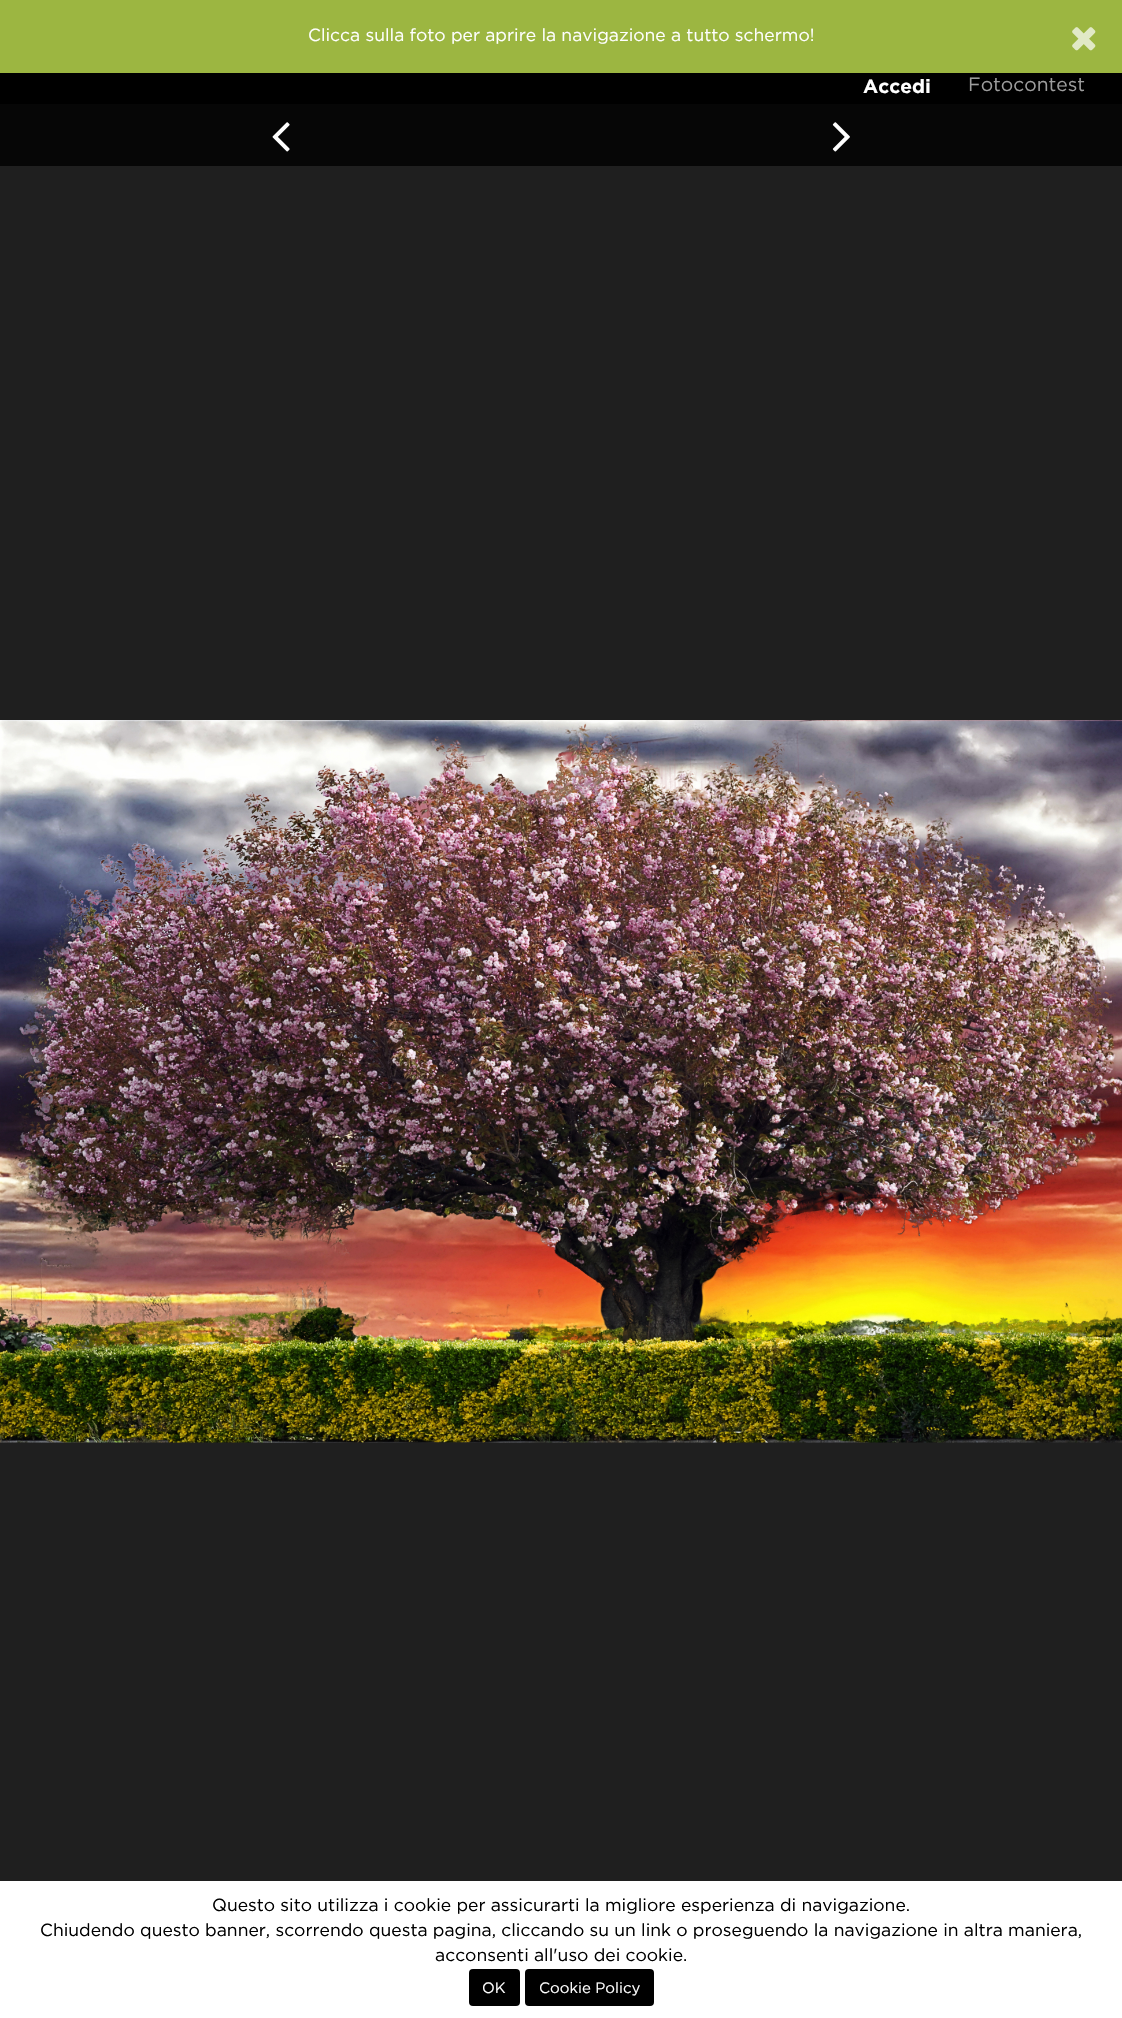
static SkFont makeFont(const char* family, int weight, float size, bool italic = false) {
  SkFontStyle style(weight, SkFontStyle::kNormal_Width,
    italic ? SkFontStyle::kItalic_Slant : SkFontStyle::kUpright_Slant);
  SkFont result(fontMgr->matchFamilyStyle(family, style), size);
  result.setSubpixel(true);
  return result;
}

static void text(SkCanvas* c, const char* s, float x, float y, const SkFont& font, SkColor color) {
  SkPaint ink(SkColor4f::FromColor(color));
  ink.setAntiAlias(true);
  c->drawString(s, x, y, font, ink);
}

static void box(SkCanvas* c, float l, float t, float r, float b, SkColor color) {
  SkPaint ink(SkColor4f::FromColor(color));
  ink.setAntiAlias(true);
  c->drawRect(SkRect::MakeLTRB(l, t, r, b), ink);
}

static void roundBox(SkCanvas* c, float l, float t, float r, float b, float radius, SkColor color) {
  SkPaint ink(SkColor4f::FromColor(color));
  ink.setAntiAlias(true);
  c->drawRoundRect(SkRect::MakeLTRB(l, t, r, b), radius, radius, ink);
}

static void picture(SkCanvas* c, const char* path, float l, float t, float r, float b) {
  auto image = SkImages::DeferredFromEncodedData(SkData::MakeFromFileName(path));
  c->drawImageRect(image, SkRect::MakeLTRB(l, t, r, b), SkSamplingOptions());
}

void draw(SkCanvas* c) {
  SkPaint paint;
  paint.setAntiAlias(true);
  c->clear(0xff1f1f1f);
  box(c, 0, 0, 1122, 73, 0xff9cb641);
  SkFont face1 = makeFont("Gotham", 400, 17.5f);
  text(c, "Clicca sulla foto per aprire la navigazione a tutto schermo!", 308, 41, face1, 0xffffffff);
  picture(c, "img_01.png", 1072, 27, 1096, 51);
  box(c, 0, 104, 1122, 166, 0xff060606);
  picture(c, "img_02.png", 272, 122, 290, 152);
  picture(c, "img_03.png", 832, 122, 850, 152);
  picture(c, "img_04.png", 0, 720, 1122, 1443);
  box(c, 0, 73, 1122, 104, 0xff000000);
  SkFont face2 = makeFont("Gotham", 700, 19.25f);
  text(c, "Accedi", 863, 93, face2, 0xffffffff);
  SkFont face3 = makeFont("Gotham", 400, 19.25f);
  text(c, "Fotocontest", 968, 91, face3, 0xff9d9d9d);
  box(c, 0, 1881, 1122, 2018, 0xffffffff);
  text(c, "Questo sito utilizza i cookie per assicurarti la migliore esperienza di navigazione.", 212, 1911, face1, 0xff000000);
  text(c, "Chiudendo questo banner, scorrendo questa pagina, cliccando su un link o proseguendo la navigazione in altra maniera,", 40, 1936, face1, 0xff000000);
  text(c, "acconsenti all'uso dei cookie.", 435, 1961, face1, 0xff000000);
  roundBox(c, 469, 1969, 520, 2006, 4, 0xff000000);
  SkFont face4 = makeFont("Gotham", 400, 15);
  text(c, "OK", 482, 1993, face4, 0xffffffff);
  roundBox(c, 525, 1969, 654, 2006, 4, 0xff000000);
  text(c, "Cookie Policy", 539, 1993, face4, 0xffffffff);
}
